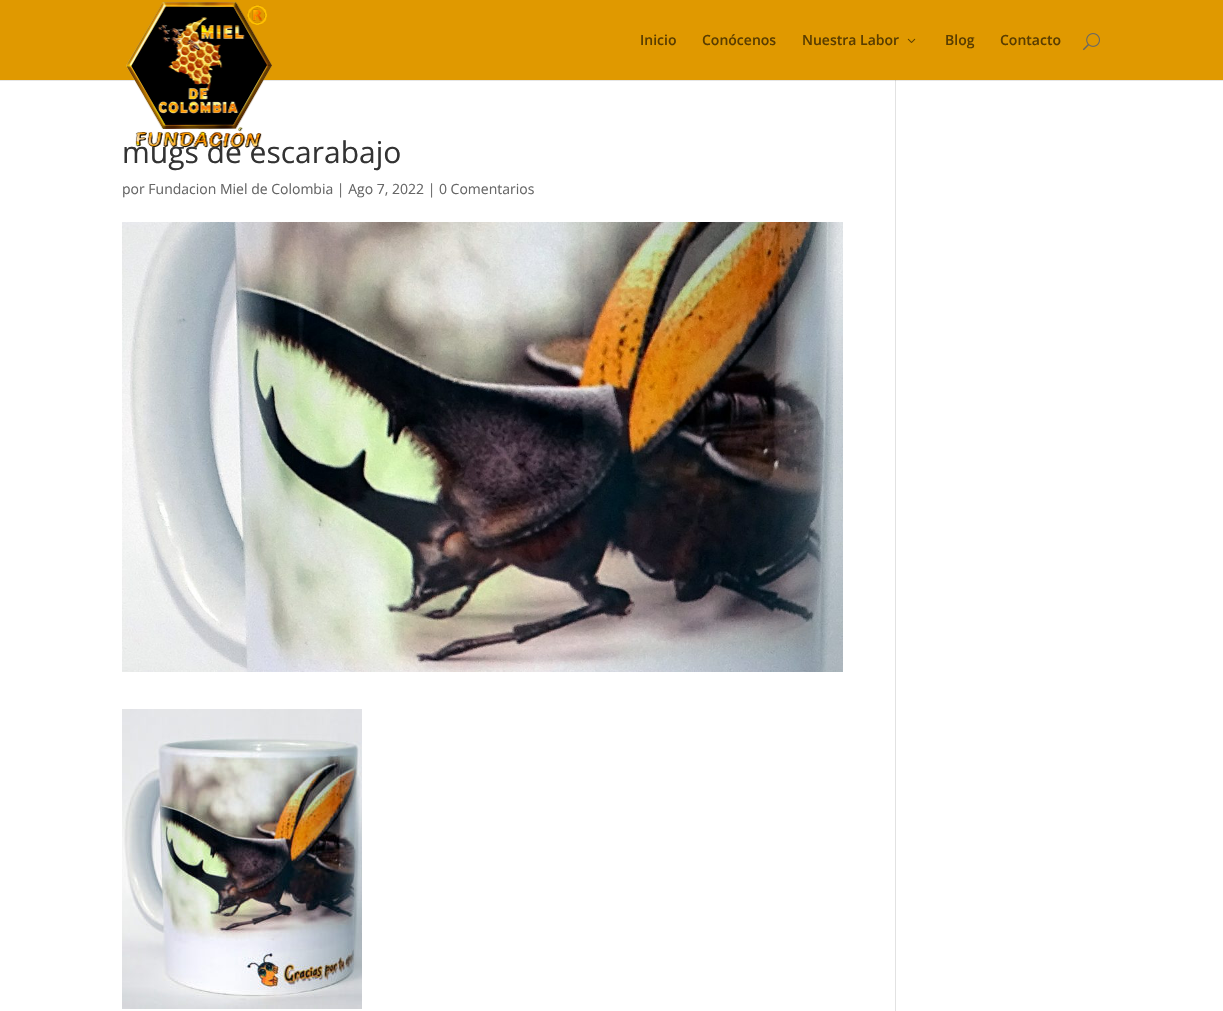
static SkFont makeFont(const char* family, int weight, float size, bool italic = false) {
  SkFontStyle style(weight, SkFontStyle::kNormal_Width,
    italic ? SkFontStyle::kItalic_Slant : SkFontStyle::kUpright_Slant);
  SkFont result(fontMgr->matchFamilyStyle(family, style), size);
  result.setSubpixel(true);
  return result;
}

static void text(SkCanvas* c, const char* s, float x, float y, const SkFont& font, SkColor color) {
  SkPaint ink(SkColor4f::FromColor(color));
  ink.setAntiAlias(true);
  c->drawString(s, x, y, font, ink);
}

static void box(SkCanvas* c, float l, float t, float r, float b, SkColor color) {
  SkPaint ink(SkColor4f::FromColor(color));
  ink.setAntiAlias(true);
  c->drawRect(SkRect::MakeLTRB(l, t, r, b), ink);
}

static void picture(SkCanvas* c, const char* path, float l, float t, float r, float b) {
  auto image = SkImages::DeferredFromEncodedData(SkData::MakeFromFileName(path));
  c->drawImageRect(image, SkRect::MakeLTRB(l, t, r, b), SkSamplingOptions());
}

void draw(SkCanvas* c) {
  SkPaint paint;
  paint.setAntiAlias(true);
  c->clear(0xffffffff);
  box(c, 0, 80, 1223, 81, 0xffe6e6e6);
  box(c, 895, 79, 896, 1011, 0xffe2e2e2);
  box(c, 0, 0, 1223, 80, 0xffe09900);
  SkFont face1 = makeFont("Open Sans", 400, 30);
  text(c, "mugs de escarabajo", 122, 163, face1, 0xff333333);
  picture(c, "img_01.png", 126, 2, 272, 149);
  SkFont face2 = makeFont("Open Sans", 600, 14);
  text(c, "Inicio", 640, 45, face2, 0xff5a3d00);
  text(c, "Conócenos", 702, 45, face2, 0xff5a3d00);
  text(c, "Nuestra Labor", 802, 45, face2, 0xff5a3d00);
  picture(c, "img_02.png", 907, 38, 916, 43);
  text(c, "Blog", 945, 45, face2, 0xff5a3d00);
  text(c, "Contacto", 1000, 45, face2, 0xff5a3d00);
  picture(c, "img_03.png", 1083, 33, 1100, 51);
  SkFont face3 = makeFont("Open Sans", 400, 14);
  text(c, "por Fundacion Miel de Colombia | Ago 7, 2022 | 0 Comentarios", 122, 194, face3, 0xff666666);
  picture(c, "img_04.png", 122, 222, 843, 672);
  picture(c, "img_05.png", 122, 709, 362, 1009);
  box(c, 895, 80, 896, 81, 0xffcbcbcb);
}
